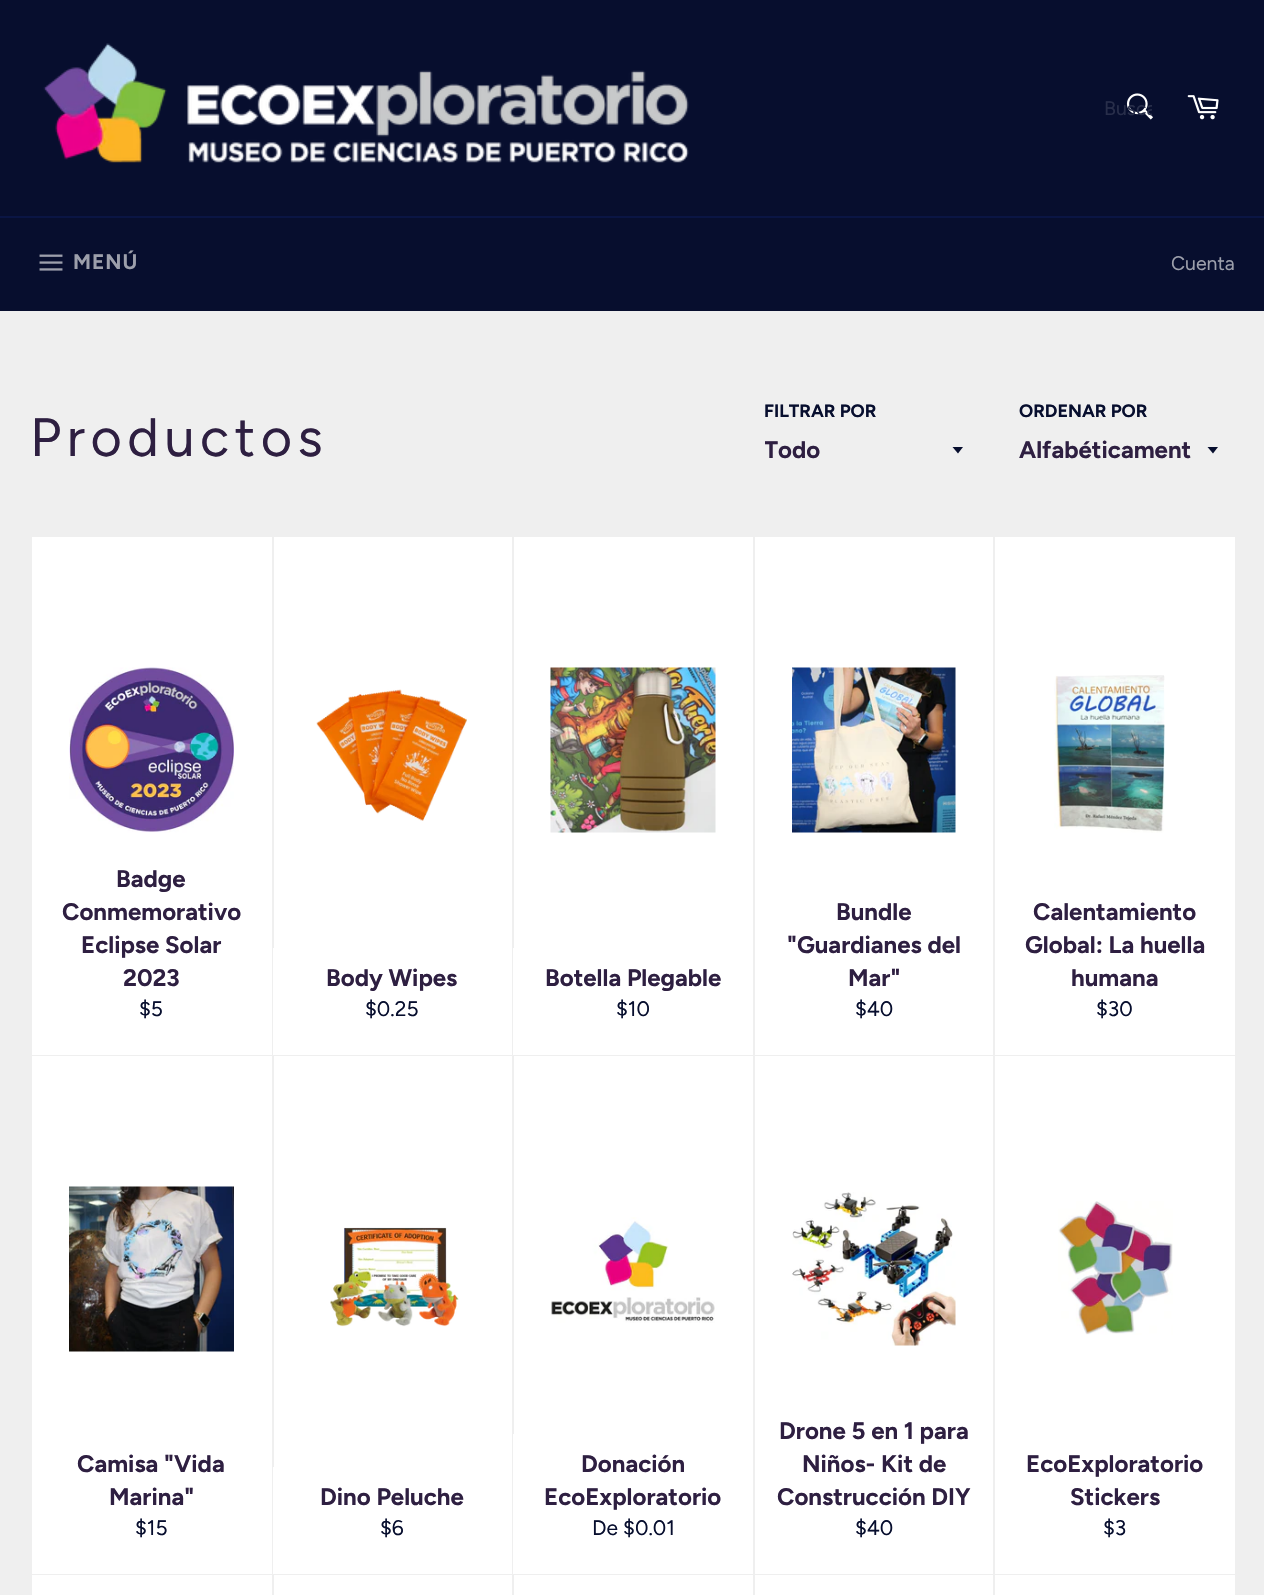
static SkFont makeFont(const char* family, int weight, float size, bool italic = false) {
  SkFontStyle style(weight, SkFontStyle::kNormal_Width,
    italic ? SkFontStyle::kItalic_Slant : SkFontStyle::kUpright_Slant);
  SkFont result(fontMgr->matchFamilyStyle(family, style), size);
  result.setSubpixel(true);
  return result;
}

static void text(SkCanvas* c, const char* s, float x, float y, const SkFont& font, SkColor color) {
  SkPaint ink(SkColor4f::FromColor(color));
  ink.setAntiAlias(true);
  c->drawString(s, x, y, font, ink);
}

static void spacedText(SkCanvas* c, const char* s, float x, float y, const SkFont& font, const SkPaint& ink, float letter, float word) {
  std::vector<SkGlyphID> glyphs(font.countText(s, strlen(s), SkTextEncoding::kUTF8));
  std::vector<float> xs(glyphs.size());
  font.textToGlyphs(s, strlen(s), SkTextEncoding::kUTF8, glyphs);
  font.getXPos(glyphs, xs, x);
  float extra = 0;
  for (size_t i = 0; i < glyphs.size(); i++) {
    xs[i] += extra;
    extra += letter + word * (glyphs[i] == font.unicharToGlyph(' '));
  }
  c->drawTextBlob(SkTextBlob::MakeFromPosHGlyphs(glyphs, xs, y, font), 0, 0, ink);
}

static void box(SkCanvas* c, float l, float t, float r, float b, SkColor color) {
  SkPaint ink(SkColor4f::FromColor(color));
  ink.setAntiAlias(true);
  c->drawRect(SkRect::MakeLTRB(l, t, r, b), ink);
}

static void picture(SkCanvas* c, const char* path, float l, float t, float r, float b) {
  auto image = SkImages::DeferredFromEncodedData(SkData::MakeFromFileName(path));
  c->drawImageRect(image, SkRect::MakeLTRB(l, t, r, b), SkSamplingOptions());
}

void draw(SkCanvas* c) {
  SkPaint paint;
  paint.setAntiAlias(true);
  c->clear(0xffefefef);
  box(c, 0, 0, 1264, 216, 0xff070e2e);
  picture(c, "img_01.png", 43, 43, 689, 163);
  picture(c, "img_02.png", 1126, 93, 1153, 120);
  c->save();
  c->clipRect(SkRect::MakeLTRB(1104, 98, 1152, 120));
  SkFont face1 = makeFont("Figtree", 400, 19.5f);
  text(c, "Busca", 1104, 115, face1, 0xff282e4a);
  c->restore();
  picture(c, "img_03.png", 1187, 95, 1219, 120);
  box(c, 0, 218, 1264, 311, 0xff070e2e);
  box(c, 0, 216, 1264, 218, 0xff0a1544);
  picture(c, "img_04.png", 39, 254, 63, 271);
  SkFont face2 = makeFont("Figtree", 700, 21);
  paint.setColor(0xff9c9fab);
  spacedText(c, "MENÚ", 73, 269, face2, paint, 1, 0);
  text(c, "Cuenta", 1171, 270, face1, 0xff9c9fab);
  SkFont face3 = makeFont("Figtree", 400, 54);
  paint.setColor(0xff2e1f41);
  spacedText(c, "Productos", 30, 456, face3, paint, 5.5f, 0);
  SkFont face4 = makeFont("Figtree", 700, 18);
  text(c, "FILTRAR POR", 764, 417, face4, 0xff070e2e);
  paint.setColor(0xff070e2e);
  c->drawPath(SkPathBuilder().moveTo(952.5f, 447).lineTo(958, 453.5f).lineTo(963, 447).close().detach(), paint);
  c->save();
  c->clipRect(SkRect::MakeLTRB(765, 434, 938, 467));
  SkFont face5 = makeFont("Figtree", 700, 24);
  text(c, "Todo", 764, 458, face5, 0xff2e1f41);
  c->restore();
  text(c, "ORDENAR POR", 1019, 417, face4, 0xff070e2e);
  c->drawPath(SkPathBuilder().moveTo(1207.5f, 447).lineTo(1213, 453.5f).lineTo(1218, 447).close().detach(), paint);
  text(c, "Alfabéticament", 1019, 458, face5, 0xff2e1f41);
  box(c, 32, 537, 272, 1055, 0xffffffff);
  picture(c, "img_05.png", 69, 667, 234, 833);
  text(c, "Badge", 116, 887, face5, 0xff2e1f41);
  text(c, "Conmemorativo", 62, 920, face5, 0xff2e1f41);
  text(c, "Eclipse Solar", 81, 953, face5, 0xff2e1f41);
  text(c, "2023", 123, 986, face5, 0xff2e1f41);
  SkFont face6 = makeFont("Figtree", 400, 21);
  text(c, "$5", 139, 1016, face6, 0xff070e2e);
  box(c, 274, 537, 512, 948, 0xffffffff);
  picture(c, "img_06.png", 316, 689, 467, 821);
  box(c, 273, 948, 512, 1055, 0xffffffff);
  text(c, "Body Wipes", 326, 986, face5, 0xff2e1f41);
  text(c, "$0.25", 365, 1016, face6, 0xff070e2e);
  box(c, 514, 537, 753, 948, 0xffffffff);
  picture(c, "img_07.png", 550, 667, 716, 833);
  box(c, 513, 948, 753, 1055, 0xffffffff);
  text(c, "Botella Plegable", 545, 986, face5, 0xff2e1f41);
  text(c, "$10", 616, 1016, face6, 0xff070e2e);
  box(c, 755, 537, 993, 1055, 0xffffffff);
  picture(c, "img_08.png", 792, 667, 956, 833);
  text(c, "Bundle", 836, 920, face5, 0xff2e1f41);
  text(c, "\"Guardianes del", 787, 953, face5, 0xff2e1f41);
  text(c, "Mar\"", 848, 986, face5, 0xff2e1f41);
  text(c, "$40", 855, 1016, face6, 0xff070e2e);
  box(c, 995, 537, 1235, 1055, 0xffffffff);
  picture(c, "img_09.png", 1054, 675, 1165, 833);
  text(c, "Calentamiento", 1033, 920, face5, 0xff2e1f41);
  text(c, "Global: La huella", 1025, 953, face5, 0xff2e1f41);
  text(c, "humana", 1071, 986, face5, 0xff2e1f41);
  text(c, "$30", 1096, 1016, face6, 0xff070e2e);
  box(c, 32, 1056, 272, 1574, 0xffffffff);
  picture(c, "img_10.png", 69, 1186, 234, 1352);
  text(c, "Camisa \"Vida", 77, 1472, face5, 0xff2e1f41);
  text(c, "Marina\"", 109, 1505, face5, 0xff2e1f41);
  text(c, "$15", 135, 1535, face6, 0xff070e2e);
  box(c, 274, 1056, 512, 1467, 0xffffffff);
  picture(c, "img_11.png", 330, 1227, 459, 1327);
  box(c, 273, 1467, 512, 1574, 0xffffffff);
  text(c, "Dino Peluche", 320, 1505, face5, 0xff2e1f41);
  text(c, "$6", 380, 1535, face6, 0xff070e2e);
  box(c, 514, 1056, 753, 1434, 0xffffffff);
  picture(c, "img_12.png", 551, 1217, 715, 1323);
  box(c, 513, 1434, 753, 1574, 0xffffffff);
  text(c, "Donación", 581, 1472, face5, 0xff2e1f41);
  text(c, "EcoExploratorio", 544, 1505, face5, 0xff2e1f41);
  text(c, "De $0.01", 592, 1535, face6, 0xff070e2e);
  box(c, 755, 1056, 993, 1574, 0xffffffff);
  picture(c, "img_13.png", 792, 1192, 956, 1346);
  text(c, "Drone 5 en 1 para", 779, 1439, face5, 0xff2e1f41);
  text(c, "Niños- Kit de", 802, 1472, face5, 0xff2e1f41);
  text(c, "Construcción DIY", 777, 1505, face5, 0xff2e1f41);
  text(c, "$40", 855, 1535, face6, 0xff070e2e);
  box(c, 995, 1056, 1235, 1574, 0xffffffff);
  picture(c, "img_14.png", 1058, 1201, 1173, 1335);
  text(c, "EcoExploratorio", 1026, 1472, face5, 0xff2e1f41);
  text(c, "Stickers", 1070, 1505, face5, 0xff2e1f41);
  text(c, "$3", 1103, 1535, face6, 0xff070e2e);
  box(c, 32, 1575, 272, 1595, 0xffffffff);
  box(c, 274, 1575, 512, 1595, 0xffffffff);
  box(c, 514, 1575, 753, 1595, 0xffffffff);
  box(c, 755, 1575, 993, 1595, 0xffffffff);
  box(c, 995, 1575, 1235, 1595, 0xffffffff);
}
